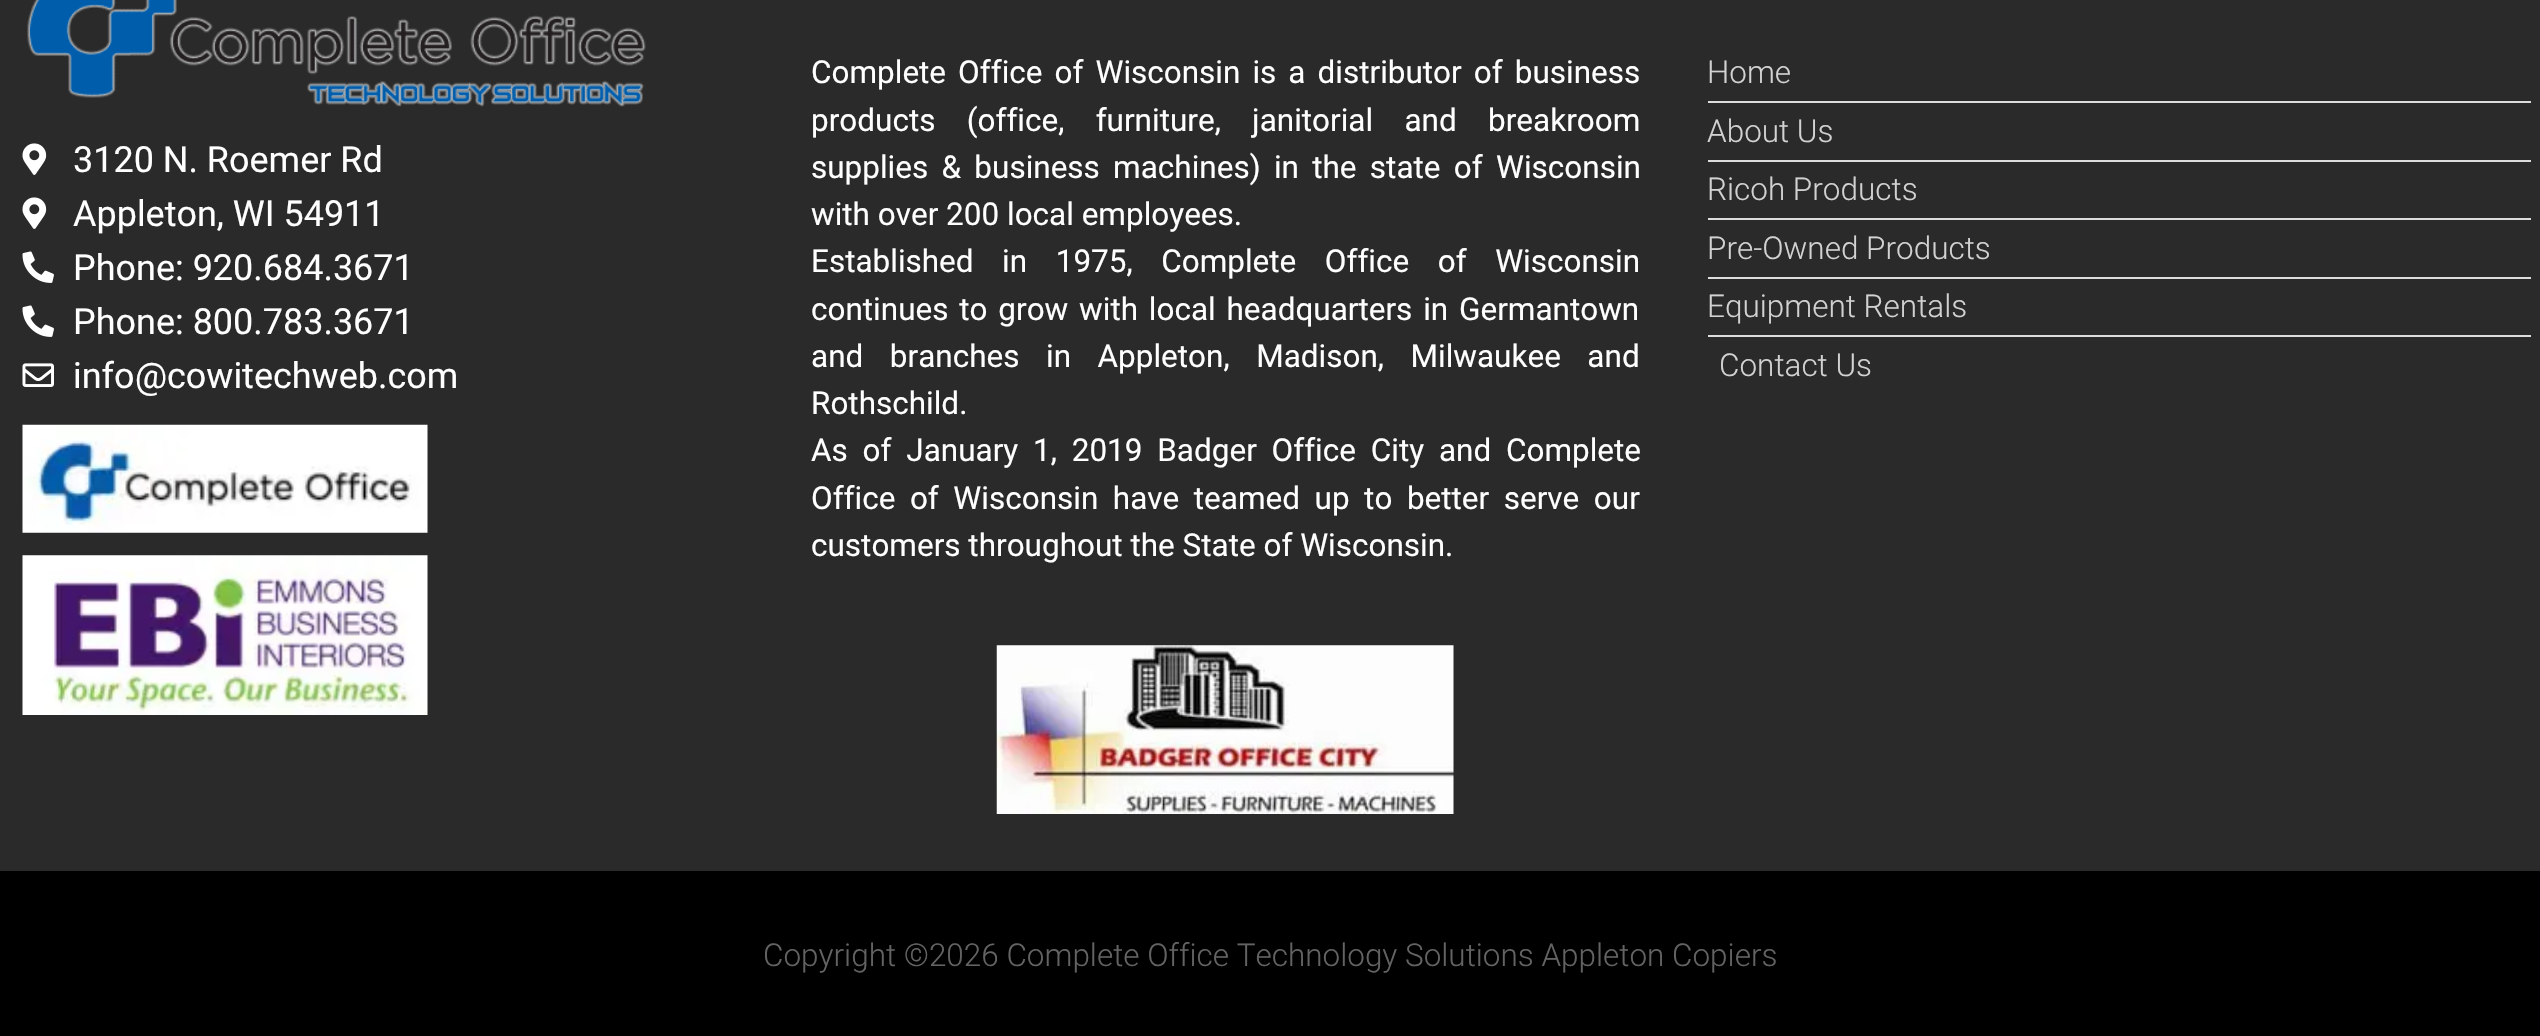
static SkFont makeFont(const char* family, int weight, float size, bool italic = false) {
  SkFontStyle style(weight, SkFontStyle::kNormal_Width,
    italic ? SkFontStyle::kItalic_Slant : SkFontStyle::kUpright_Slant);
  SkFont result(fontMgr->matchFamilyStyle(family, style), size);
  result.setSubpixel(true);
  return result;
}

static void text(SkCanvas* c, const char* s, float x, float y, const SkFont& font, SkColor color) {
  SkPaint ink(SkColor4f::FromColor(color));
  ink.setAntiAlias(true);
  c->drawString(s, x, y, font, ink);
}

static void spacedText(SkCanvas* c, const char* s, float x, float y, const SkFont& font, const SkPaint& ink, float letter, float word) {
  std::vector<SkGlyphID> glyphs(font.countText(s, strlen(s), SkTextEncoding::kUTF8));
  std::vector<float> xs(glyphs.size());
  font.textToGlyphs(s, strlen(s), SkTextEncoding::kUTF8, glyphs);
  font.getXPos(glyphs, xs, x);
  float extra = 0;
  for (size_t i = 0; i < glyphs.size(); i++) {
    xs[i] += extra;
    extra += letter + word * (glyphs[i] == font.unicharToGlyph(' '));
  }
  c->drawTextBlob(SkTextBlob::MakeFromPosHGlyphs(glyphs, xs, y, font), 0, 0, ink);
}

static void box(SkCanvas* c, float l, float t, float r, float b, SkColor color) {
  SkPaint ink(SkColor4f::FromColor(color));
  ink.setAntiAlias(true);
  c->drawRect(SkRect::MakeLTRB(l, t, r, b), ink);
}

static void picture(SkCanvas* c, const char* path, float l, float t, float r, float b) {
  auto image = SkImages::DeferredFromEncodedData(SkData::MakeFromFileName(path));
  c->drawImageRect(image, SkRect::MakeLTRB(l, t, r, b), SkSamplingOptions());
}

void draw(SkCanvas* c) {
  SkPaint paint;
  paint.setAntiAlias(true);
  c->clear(0xff2a2a2a);
  picture(c, "img_01.png", 27, 0, 646, 107);
  picture(c, "img_02.png", 22, 143, 47, 175);
  SkFont face1 = makeFont("Roboto", 400, 36);
  text(c, "3120 N. Roemer Rd", 73, 172, face1, 0xffffffff);
  picture(c, "img_02.png", 22, 197, 47, 229);
  text(c, "Appleton, WI 54911", 73, 226, face1, 0xffffffff);
  picture(c, "img_03.png", 22, 251, 54, 283);
  text(c, "Phone: 920.684.3671", 73, 280, face1, 0xffffffff);
  picture(c, "img_03.png", 22, 305, 54, 337);
  text(c, "Phone: 800.783.3671", 73, 334, face1, 0xffffffff);
  picture(c, "img_04.png", 22, 363, 54, 387);
  text(c, "info@cowitechweb.com", 73, 388, face1, 0xffffffff);
  picture(c, "img_05.png", 22, 424, 428, 533);
  picture(c, "img_06.png", 22, 555, 428, 715);
  SkFont face2 = makeFont("Roboto", 400, 31.5f);
  paint.setColor(0xffffffff);
  spacedText(c, "Complete Office of Wisconsin is a distributor of business", 811, 83, face2, paint, 0, 4.25f);
  spacedText(c, "products (office, furniture, janitorial and breakroom", 811, 131, face2, paint, 0, 23.5f);
  spacedText(c, "supplies & business machines) in the state of Wisconsin", 811, 178, face2, paint, 0, 5.5f);
  text(c, "with over 200 local employees.", 811, 225, face2, 0xffffffff);
  spacedText(c, "Established in 1975, Complete Office of Wisconsin", 811, 272, face2, paint, 0, 20.75f);
  spacedText(c, "continues to grow with local headquarters in Germantown", 811, 320, face2, paint, 0, 3);
  spacedText(c, "and branches in Appleton, Madison, Milwaukee and", 811, 367, face2, paint, 0, 18.75f);
  text(c, "Rothschild.", 811, 414, face2, 0xffffffff);
  spacedText(c, "As of January 1, 2019 Badger Office City and Complete", 811, 461, face2, paint, 0, 7);
  spacedText(c, "Office of Wisconsin have teamed up to better serve our", 811, 509, face2, paint, 0, 6.75f);
  text(c, "customers throughout the State of Wisconsin.", 811, 556, face2, 0xffffffff);
  picture(c, "img_07.png", 996, 645, 1454, 814);
  SkFont face3 = makeFont("Roboto", 300, 31.5f);
  text(c, "Home", 1707, 83, face3, 0xffd2d2d2);
  box(c, 1708, 101, 2531, 103, 0xffdddddd);
  text(c, "About Us", 1707, 142, face3, 0xffd2d2d2);
  box(c, 1708, 160, 2531, 162, 0xffdddddd);
  text(c, "Ricoh Products", 1707, 200, face3, 0xffd2d2d2);
  box(c, 1708, 218, 2531, 220, 0xffdddddd);
  text(c, "Pre-Owned Products", 1707, 259, face3, 0xffd2d2d2);
  box(c, 1708, 277, 2531, 279, 0xffdddddd);
  text(c, "Equipment Rentals", 1707, 317, face3, 0xffd2d2d2);
  box(c, 1708, 335, 2531, 337, 0xffdddddd);
  text(c, "Contact Us", 1719, 376, face3, 0xffd2d2d2);
  box(c, 0, 871, 2540, 1036, 0xff000000);
  text(c, "Copyright ©2026 Complete Office Technology Solutions Appleton Copiers", 763, 966, face3, 0xff636363);
}
